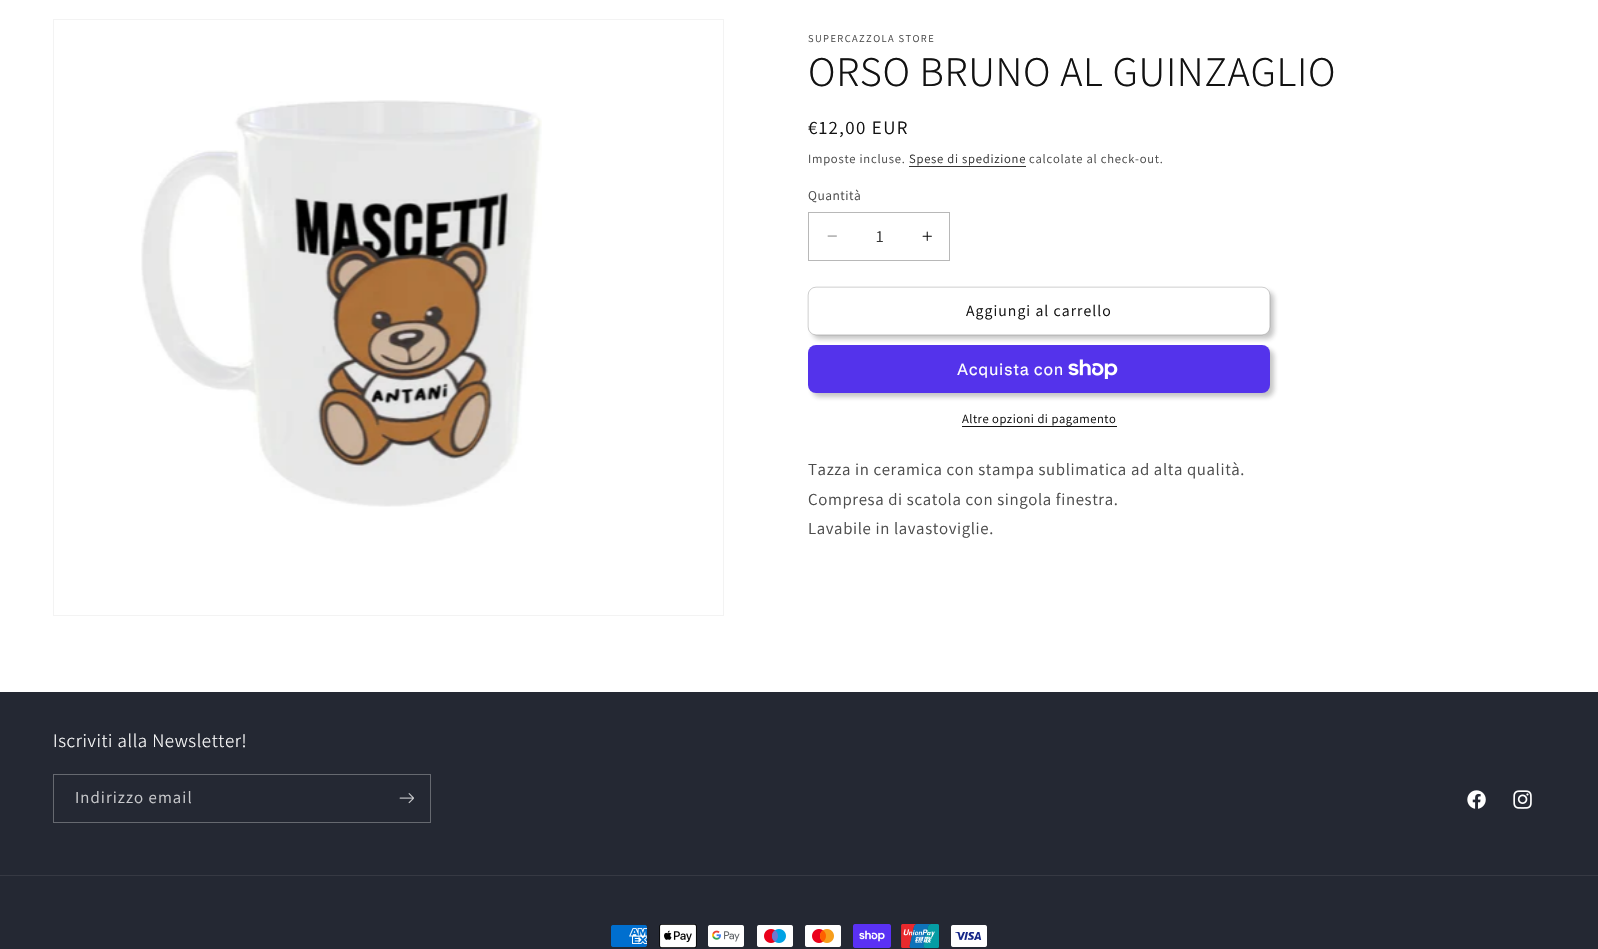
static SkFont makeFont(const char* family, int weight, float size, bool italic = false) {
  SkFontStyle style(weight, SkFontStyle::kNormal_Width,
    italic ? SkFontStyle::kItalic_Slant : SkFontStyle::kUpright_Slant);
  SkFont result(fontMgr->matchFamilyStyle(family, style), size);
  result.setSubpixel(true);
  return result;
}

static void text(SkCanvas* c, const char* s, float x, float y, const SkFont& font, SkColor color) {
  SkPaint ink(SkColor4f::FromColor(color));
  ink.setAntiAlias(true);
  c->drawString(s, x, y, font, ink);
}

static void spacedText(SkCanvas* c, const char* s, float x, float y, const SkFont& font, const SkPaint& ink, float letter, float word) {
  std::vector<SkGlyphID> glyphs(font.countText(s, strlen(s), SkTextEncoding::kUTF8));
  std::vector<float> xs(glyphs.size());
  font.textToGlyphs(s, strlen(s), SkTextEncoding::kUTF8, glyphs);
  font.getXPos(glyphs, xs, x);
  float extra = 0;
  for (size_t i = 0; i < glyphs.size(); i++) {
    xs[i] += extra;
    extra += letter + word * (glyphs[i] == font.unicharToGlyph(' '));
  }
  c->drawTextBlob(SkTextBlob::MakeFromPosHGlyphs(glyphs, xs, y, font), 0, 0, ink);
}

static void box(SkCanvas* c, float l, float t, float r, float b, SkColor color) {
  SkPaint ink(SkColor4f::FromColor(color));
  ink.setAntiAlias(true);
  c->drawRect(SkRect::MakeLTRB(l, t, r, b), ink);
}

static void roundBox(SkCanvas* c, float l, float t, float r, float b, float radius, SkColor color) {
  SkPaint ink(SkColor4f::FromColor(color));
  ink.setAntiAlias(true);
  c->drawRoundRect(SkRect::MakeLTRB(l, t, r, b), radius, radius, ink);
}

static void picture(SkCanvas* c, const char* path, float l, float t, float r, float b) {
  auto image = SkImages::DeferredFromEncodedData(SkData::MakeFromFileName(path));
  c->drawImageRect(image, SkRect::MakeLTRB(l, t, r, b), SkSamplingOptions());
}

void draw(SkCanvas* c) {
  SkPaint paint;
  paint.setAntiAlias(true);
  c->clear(0xffffffff);
  paint.setStyle(SkPaint::kStroke_Style);
  paint.setStrokeWidth(1);
  paint.setColor(0xfff3f3f3);
  c->drawRect(SkRect::MakeLTRB(53.5f, 19.5f, 723.5f, 615.5f), paint);
  picture(c, "img_01.png", 141, 100, 542, 507);
  SkFont face1 = makeFont("Assistant", 400, 10.5f);
  paint.setStyle(SkPaint::kFill_Style);
  paint.setColor(0xff4d4d4d);
  spacedText(c, "SUPERCAZZOLA STORE", 808, 42, face1, paint, 1.4f, 0);
  SkFont face2 = makeFont("Assistant", 300, 42);
  paint.setColor(0xff121212);
  spacedText(c, "ORSO BRUNO AL GUINZAGLIO", 808, 86, face2, paint, 0.63f, 0);
  SkFont face3 = makeFont("Assistant", 400, 18.9f);
  spacedText(c, "€12,00 EUR", 808, 134, face3, paint, 1.4f, 0);
  SkFont face4 = makeFont("Assistant", 400, 12.6f);
  paint.setColor(0xff4d4d4d);
  spacedText(c, "Imposte incluse.", 808, 163, face4, paint, 0.75f, 0);
  paint.setColor(0xff363636);
  spacedText(c, "Spese di spedizione", 909, 163, face4, paint, 0.75f, 0);
  box(c, 909, 166, 1026, 167, 0xff363636);
  paint.setColor(0xff4d4d4d);
  spacedText(c, "calcolate al check-out.", 1029, 163, face4, paint, 0.75f, 0);
  SkFont face5 = makeFont("Assistant", 400, 13.5f);
  spacedText(c, "Quantità", 808, 200, face5, paint, 0.5f, 0);
  picture(c, "img_02.png", 827, 235, 837, 237);
  picture(c, "img_03.png", 922, 231, 932, 241);
  paint.setStyle(SkPaint::kStroke_Style);
  paint.setColor(0xffb8b8b8);
  c->drawRect(SkRect::MakeLTRB(808.5f, 212.5f, 949.5f, 260.5f), paint);
  SkFont face6 = makeFont("Assistant", 400, 16.8f);
  text(c, "1", 876, 242, face6, 0xff363636);
  paint.setStyle(SkPaint::kFill_Style);
  paint.setColor(0x40121212);
  paint.setMaskFilter(SkMaskFilter::MakeBlur(kNormal_SkBlurStyle, 2.5f));
  c->drawRoundRect(SkRect::MakeLTRB(812, 291, 1274, 339), 8, 8, paint);
  paint.setMaskFilter(nullptr);
  roundBox(c, 808, 287, 1270, 335, 8, 0xffffffff);
  paint.setStyle(SkPaint::kStroke_Style);
  paint.setStrokeWidth(0.3f);
  paint.setColor(0xb3121212);
  c->drawRoundRect(SkRect::MakeLTRB(808.15f, 287.15f, 1269.85f, 334.85f), 7.85f, 7.85f, paint);
  SkFont face7 = makeFont("Assistant", 400, 15.75f);
  paint.setStyle(SkPaint::kFill_Style);
  paint.setColor(0xff121212);
  spacedText(c, "Aggiungi al carrello", 966, 316, face7, paint, 1.05f, 0);
  paint.setColor(0x40121212);
  paint.setMaskFilter(SkMaskFilter::MakeBlur(kNormal_SkBlurStyle, 2.5f));
  c->drawRoundRect(SkRect::MakeLTRB(812, 349, 1274, 397), 8, 8, paint);
  paint.setMaskFilter(nullptr);
  roundBox(c, 808, 345, 1270, 393, 8, 0xff5433eb);
  SkFont face8 = makeFont("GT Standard", 400, 16);
  paint.setColor(0xffffffff);
  spacedText(c, "Acquista con", 957, 375, face8, paint, 0.63f, 0);
  picture(c, "img_04.png", 1068, 359, 1118, 379);
  paint.setColor(0xff121212);
  spacedText(c, "Altre opzioni di pagamento", 962, 423, face4, paint, 0.5f, 0);
  box(c, 962, 426, 1117, 427, 0xff121212);
  paint.setColor(0xff4d4d4d);
  spacedText(c, "Tazza in ceramica con stampa sublimatica ad alta qualità.", 808, 475, face6, paint, 0.63f, 0);
  spacedText(c, "Compresa di scatola con singola finestra.", 808, 505, face6, paint, 0.63f, 0);
  spacedText(c, "Lavabile in lavastoviglie.", 808, 534, face6, paint, 0.63f, 0);
  box(c, 0, 692, 1598, 949, 0xff242833);
  SkFont face9 = makeFont("Assistant", 300, 18.9f);
  paint.setColor(0xffffffff);
  spacedText(c, "Iscriviti alla Newsletter!", 53, 747, face9, paint, 0.63f, 0);
  paint.setStyle(SkPaint::kStroke_Style);
  paint.setStrokeWidth(1);
  paint.setColor(0xff666970);
  c->drawRect(SkRect::MakeLTRB(53.5f, 774.5f, 430.5f, 822.5f), paint);
  paint.setStyle(SkPaint::kFill_Style);
  paint.setColor(0xffc8c9cc);
  spacedText(c, "Indirizzo email", 75, 803, face6, paint, 1.05f, 0);
  picture(c, "img_05.png", 399, 793, 414, 804);
  picture(c, "img_06.png", 1467, 790, 1486, 809);
  picture(c, "img_07.png", 1513, 790, 1532, 809);
  box(c, 0, 875, 1598, 876, 0xff363943);
  picture(c, "img_08.png", 611, 925, 647, 947);
  picture(c, "img_09.png", 659, 924, 697, 948);
  picture(c, "img_10.png", 708, 925, 744, 947);
  picture(c, "img_11.png", 757, 925, 793, 947);
  picture(c, "img_12.png", 805, 925, 841, 947);
  picture(c, "img_13.png", 853, 924, 891, 948);
  picture(c, "img_14.png", 901, 924, 939, 948);
  picture(c, "img_15.png", 951, 925, 987, 947);
}
